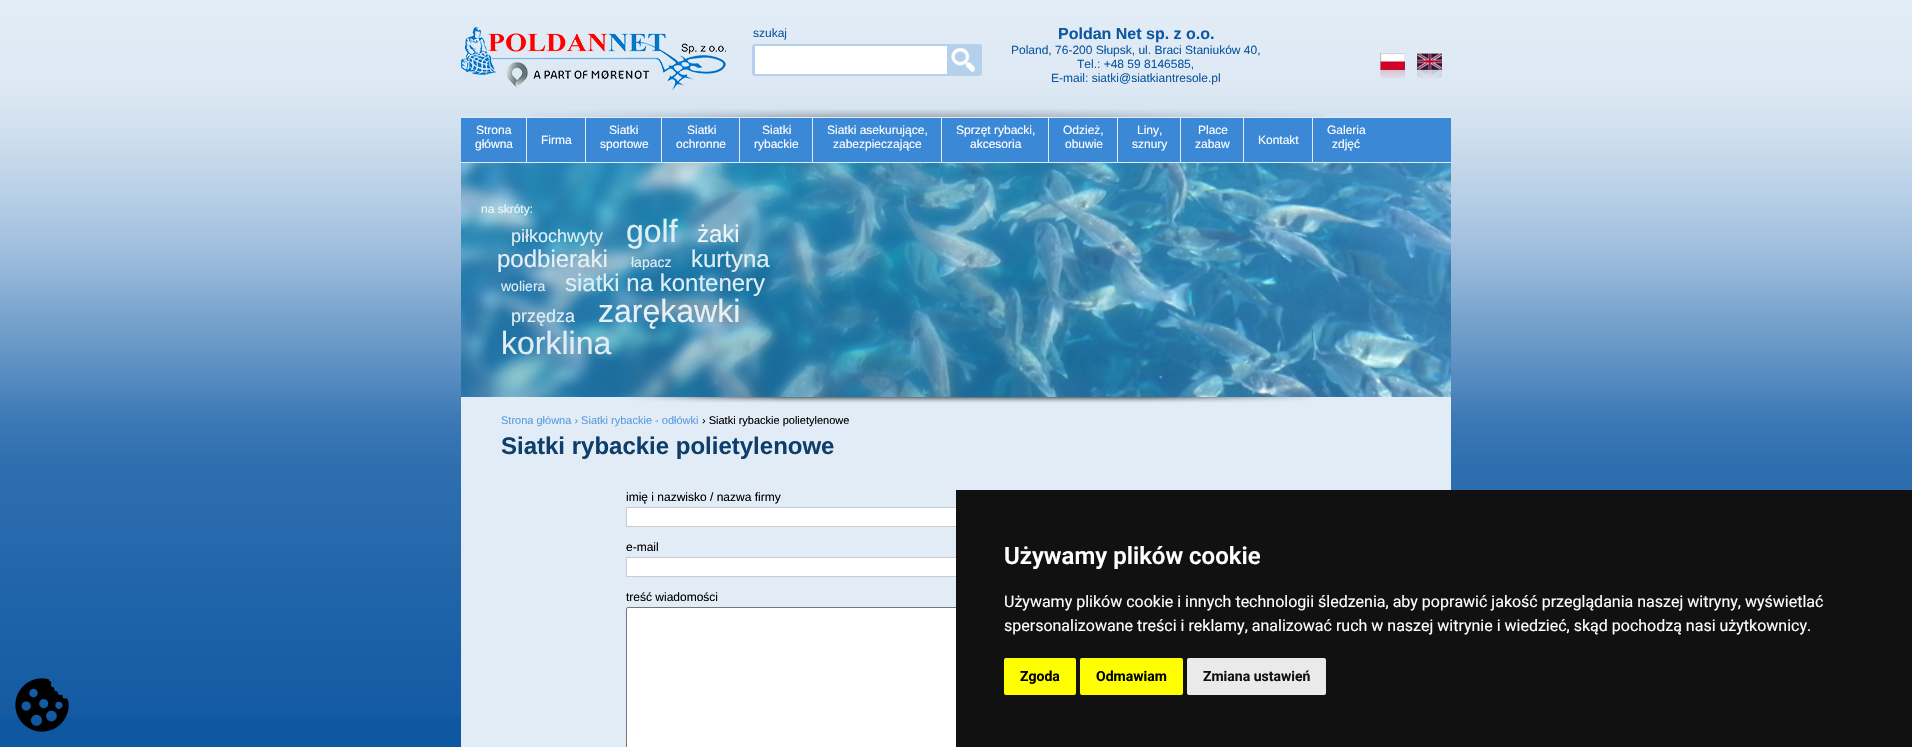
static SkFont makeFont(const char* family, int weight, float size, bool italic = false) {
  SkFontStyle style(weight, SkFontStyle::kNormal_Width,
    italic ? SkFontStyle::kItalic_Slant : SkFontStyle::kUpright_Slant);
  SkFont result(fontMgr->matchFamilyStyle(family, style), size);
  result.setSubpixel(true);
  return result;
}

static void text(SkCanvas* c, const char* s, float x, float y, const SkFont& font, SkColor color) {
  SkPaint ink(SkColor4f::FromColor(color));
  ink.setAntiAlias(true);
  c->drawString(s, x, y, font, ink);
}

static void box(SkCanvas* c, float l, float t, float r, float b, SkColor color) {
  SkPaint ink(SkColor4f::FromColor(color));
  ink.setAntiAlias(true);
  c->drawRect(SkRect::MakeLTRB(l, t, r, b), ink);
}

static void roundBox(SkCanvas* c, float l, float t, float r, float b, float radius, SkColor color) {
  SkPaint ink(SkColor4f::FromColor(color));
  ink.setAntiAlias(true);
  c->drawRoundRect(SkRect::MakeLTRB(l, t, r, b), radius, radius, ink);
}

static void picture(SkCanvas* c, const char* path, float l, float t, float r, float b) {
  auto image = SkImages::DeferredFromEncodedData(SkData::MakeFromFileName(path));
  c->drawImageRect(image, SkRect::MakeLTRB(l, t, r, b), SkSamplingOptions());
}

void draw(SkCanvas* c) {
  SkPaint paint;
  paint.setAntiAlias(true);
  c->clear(0xff0e57a1);
  picture(c, "img_01.png", 0, 0, 1912, 717);
  picture(c, "img_02.png", 531, 109, 1324, 117);
  picture(c, "img_03.png", 461, 27, 726, 91);
  picture(c, "img_04.png", 752, 44, 982, 76);
  SkFont face1 = makeFont("Liberation Sans", 400, 12);
  text(c, "szukaj", 753, 37, face1, 0xff0d57a1);
  SkFont face2 = makeFont("Liberation Sans", 700, 16);
  text(c, "Poldan Net sp. z o.o.", 1058, 39, face2, 0xff0d57a1);
  text(c, "Poland, 76-200 Słupsk, ul. Braci Staniuków 40,", 1011, 54, face1, 0xff0d57a1);
  text(c, "Tel.: +48 59 8146585,", 1077, 68, face1, 0xff0d57a1);
  text(c, "E-mail: siatki@siatkiantresole.pl", 1051, 82, face1, 0xff0d57a1);
  picture(c, "img_05.png", 1380, 53, 1442, 79);
  box(c, 461, 397, 1451, 747, 0xffe2ecf6);
  box(c, 461, 118, 1451, 162, 0xff3b88d6);
  box(c, 461, 117, 1451, 118, 0xffe1ebf5);
  box(c, 461, 162, 1451, 163, 0xffe1ebf5);
  box(c, 526, 118, 527, 162, 0xffe1ebf5);
  text(c, "Strona", 476, 134, face1, 0xffffffff);
  text(c, "główna", 475, 148, face1, 0xffffffff);
  box(c, 585, 118, 586, 162, 0xffe1ebf5);
  text(c, "Firma", 541, 144, face1, 0xffffffff);
  box(c, 661, 118, 662, 162, 0xffe1ebf5);
  text(c, "Siatki", 609, 134, face1, 0xffffffff);
  text(c, "sportowe", 600, 148, face1, 0xffffffff);
  box(c, 739, 118, 740, 162, 0xffe1ebf5);
  text(c, "Siatki", 687, 134, face1, 0xffffffff);
  text(c, "ochronne", 676, 148, face1, 0xffffffff);
  box(c, 812, 118, 813, 162, 0xffe1ebf5);
  text(c, "Siatki", 762, 134, face1, 0xffffffff);
  text(c, "rybackie", 754, 148, face1, 0xffffffff);
  box(c, 941, 118, 942, 162, 0xffe1ebf5);
  text(c, "Siatki asekurujące,", 827, 134, face1, 0xffffffff);
  text(c, "zabezpieczające", 833, 148, face1, 0xffffffff);
  box(c, 1048, 118, 1049, 162, 0xffe1ebf5);
  text(c, "Sprzęt rybacki,", 956, 134, face1, 0xffffffff);
  text(c, "akcesoria", 970, 148, face1, 0xffffffff);
  box(c, 1117, 118, 1118, 162, 0xffe1ebf5);
  text(c, "Odzież,", 1063, 134, face1, 0xffffffff);
  text(c, "obuwie", 1065, 148, face1, 0xffffffff);
  box(c, 1180, 118, 1181, 162, 0xffe1ebf5);
  text(c, "Liny,", 1137, 134, face1, 0xffffffff);
  text(c, "sznury", 1132, 148, face1, 0xffffffff);
  box(c, 1243, 118, 1244, 162, 0xffe1ebf5);
  text(c, "Place", 1198, 134, face1, 0xffffffff);
  text(c, "zabaw", 1195, 148, face1, 0xffffffff);
  box(c, 1312, 118, 1313, 162, 0xffe1ebf5);
  text(c, "Kontakt", 1258, 144, face1, 0xffffffff);
  text(c, "Galeria", 1327, 134, face1, 0xffffffff);
  text(c, "zdjęć", 1332, 148, face1, 0xffffffff);
  picture(c, "img_06.png", 626, 397, 1313, 403);
  picture(c, "img_07.png", 461, 163, 1451, 397);
  text(c, "na skróty:", 481, 213, face1, 0xffedf5f9);
  SkFont face3 = makeFont("Liberation Sans", 400, 18);
  text(c, "piłkochwyty", 511, 242, face3, 0xffe0eef4);
  SkFont face4 = makeFont("Liberation Sans", 400, 32);
  text(c, "golf", 626, 242, face4, 0xffe0eef4);
  SkFont face5 = makeFont("Liberation Sans", 400, 24);
  text(c, "żaki", 697, 242, face5, 0xffedf5f9);
  text(c, "podbieraki", 497, 267, face5, 0xffe7f0f5);
  SkFont face6 = makeFont("Liberation Sans", 400, 14);
  text(c, "łapacz", 631, 267, face6, 0xffe0eef4);
  text(c, "kurtyna", 691, 267, face5, 0xffe0eef4);
  text(c, "woliera", 501, 291, face6, 0xffe0eef4);
  text(c, "siatki na kontenery", 565, 291, face5, 0xffe0eef4);
  text(c, "przędza", 511, 322, face3, 0xffe0eef4);
  text(c, "zarękawki", 598, 322, face4, 0xffe7f0f5);
  text(c, "korklina", 501, 354, face4, 0xffe0eef4);
  SkFont face7 = makeFont("Liberation Sans", 400, 11);
  text(c, "Strona główna › Siatki rybackie - odłówki", 501, 424, face7, 0xff5c9cdc);
  text(c, "› Siatki rybackie polietylenowe", 702, 424, face7, 0xff000000);
  SkFont face8 = makeFont("Liberation Sans", 700, 24);
  text(c, "Siatki rybackie polietylenowe", 501, 454, face8, 0xff0f3e6a);
  text(c, "imię i nazwisko / nazwa firmy", 626, 501, face1, 0xff000000);
  box(c, 627, 508, 956, 526, 0xffffffff);
  paint.setStyle(SkPaint::kStroke_Style);
  paint.setStrokeWidth(1);
  paint.setColor(0xffcccccc);
  c->drawRect(SkRect::MakeLTRB(626.5f, 507.5f, 1291.5f, 526.5f), paint);
  text(c, "e-mail", 626, 551, face1, 0xff000000);
  box(c, 627, 558, 956, 576, 0xffffffff);
  c->drawRect(SkRect::MakeLTRB(626.5f, 557.5f, 1291.5f, 576.5f), paint);
  text(c, "treść wiadomości", 626, 601, face1, 0xff000000);
  paint.setStyle(SkPaint::kFill_Style);
  paint.setColor(0xffffffff);
  c->drawRoundRect(SkRect::MakeLTRB(626.5f, 607.5f, 1291.5f, 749.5f), 1.5f, 1.5f, paint);
  paint.setStyle(SkPaint::kStroke_Style);
  paint.setColor(0xff767676);
  c->drawRoundRect(SkRect::MakeLTRB(626.5f, 607.5f, 1291.5f, 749.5f), 1.5f, 1.5f, paint);
  box(c, 956, 490, 1912, 747, 0xff111111);
  SkFont face9 = makeFont("Roboto", 600, 24);
  text(c, "Używamy plików cookie", 1004, 564, face9, 0xffffffff);
  SkFont face10 = makeFont("Roboto", 400, 16);
  text(c, "Używamy plików cookie i innych technologii śledzenia, aby poprawić jakość przeglądania naszej witryny, wyświetlać", 1004, 607, face10, 0xffffffff);
  text(c, "spersonalizowane treści i reklamy, analizować ruch w naszej witrynie i wiedzieć, skąd pochodzą nasi użytkownicy.", 1004, 631, face10, 0xffffffff);
  roundBox(c, 1004, 658, 1076, 695, 2, 0xffffff00);
  SkFont face11 = makeFont("Roboto", 700, 14);
  text(c, "Zgoda", 1020, 681, face11, 0xff000000);
  roundBox(c, 1080, 658, 1183, 695, 2, 0xffffff00);
  text(c, "Odmawiam", 1096, 681, face11, 0xff000000);
  roundBox(c, 1187, 658, 1326, 695, 2, 0xffeaeaea);
  text(c, "Zmiana ustawień", 1203, 681, face11, 0xff111111);
  picture(c, "img_08.png", 15, 678, 69, 732);
}
